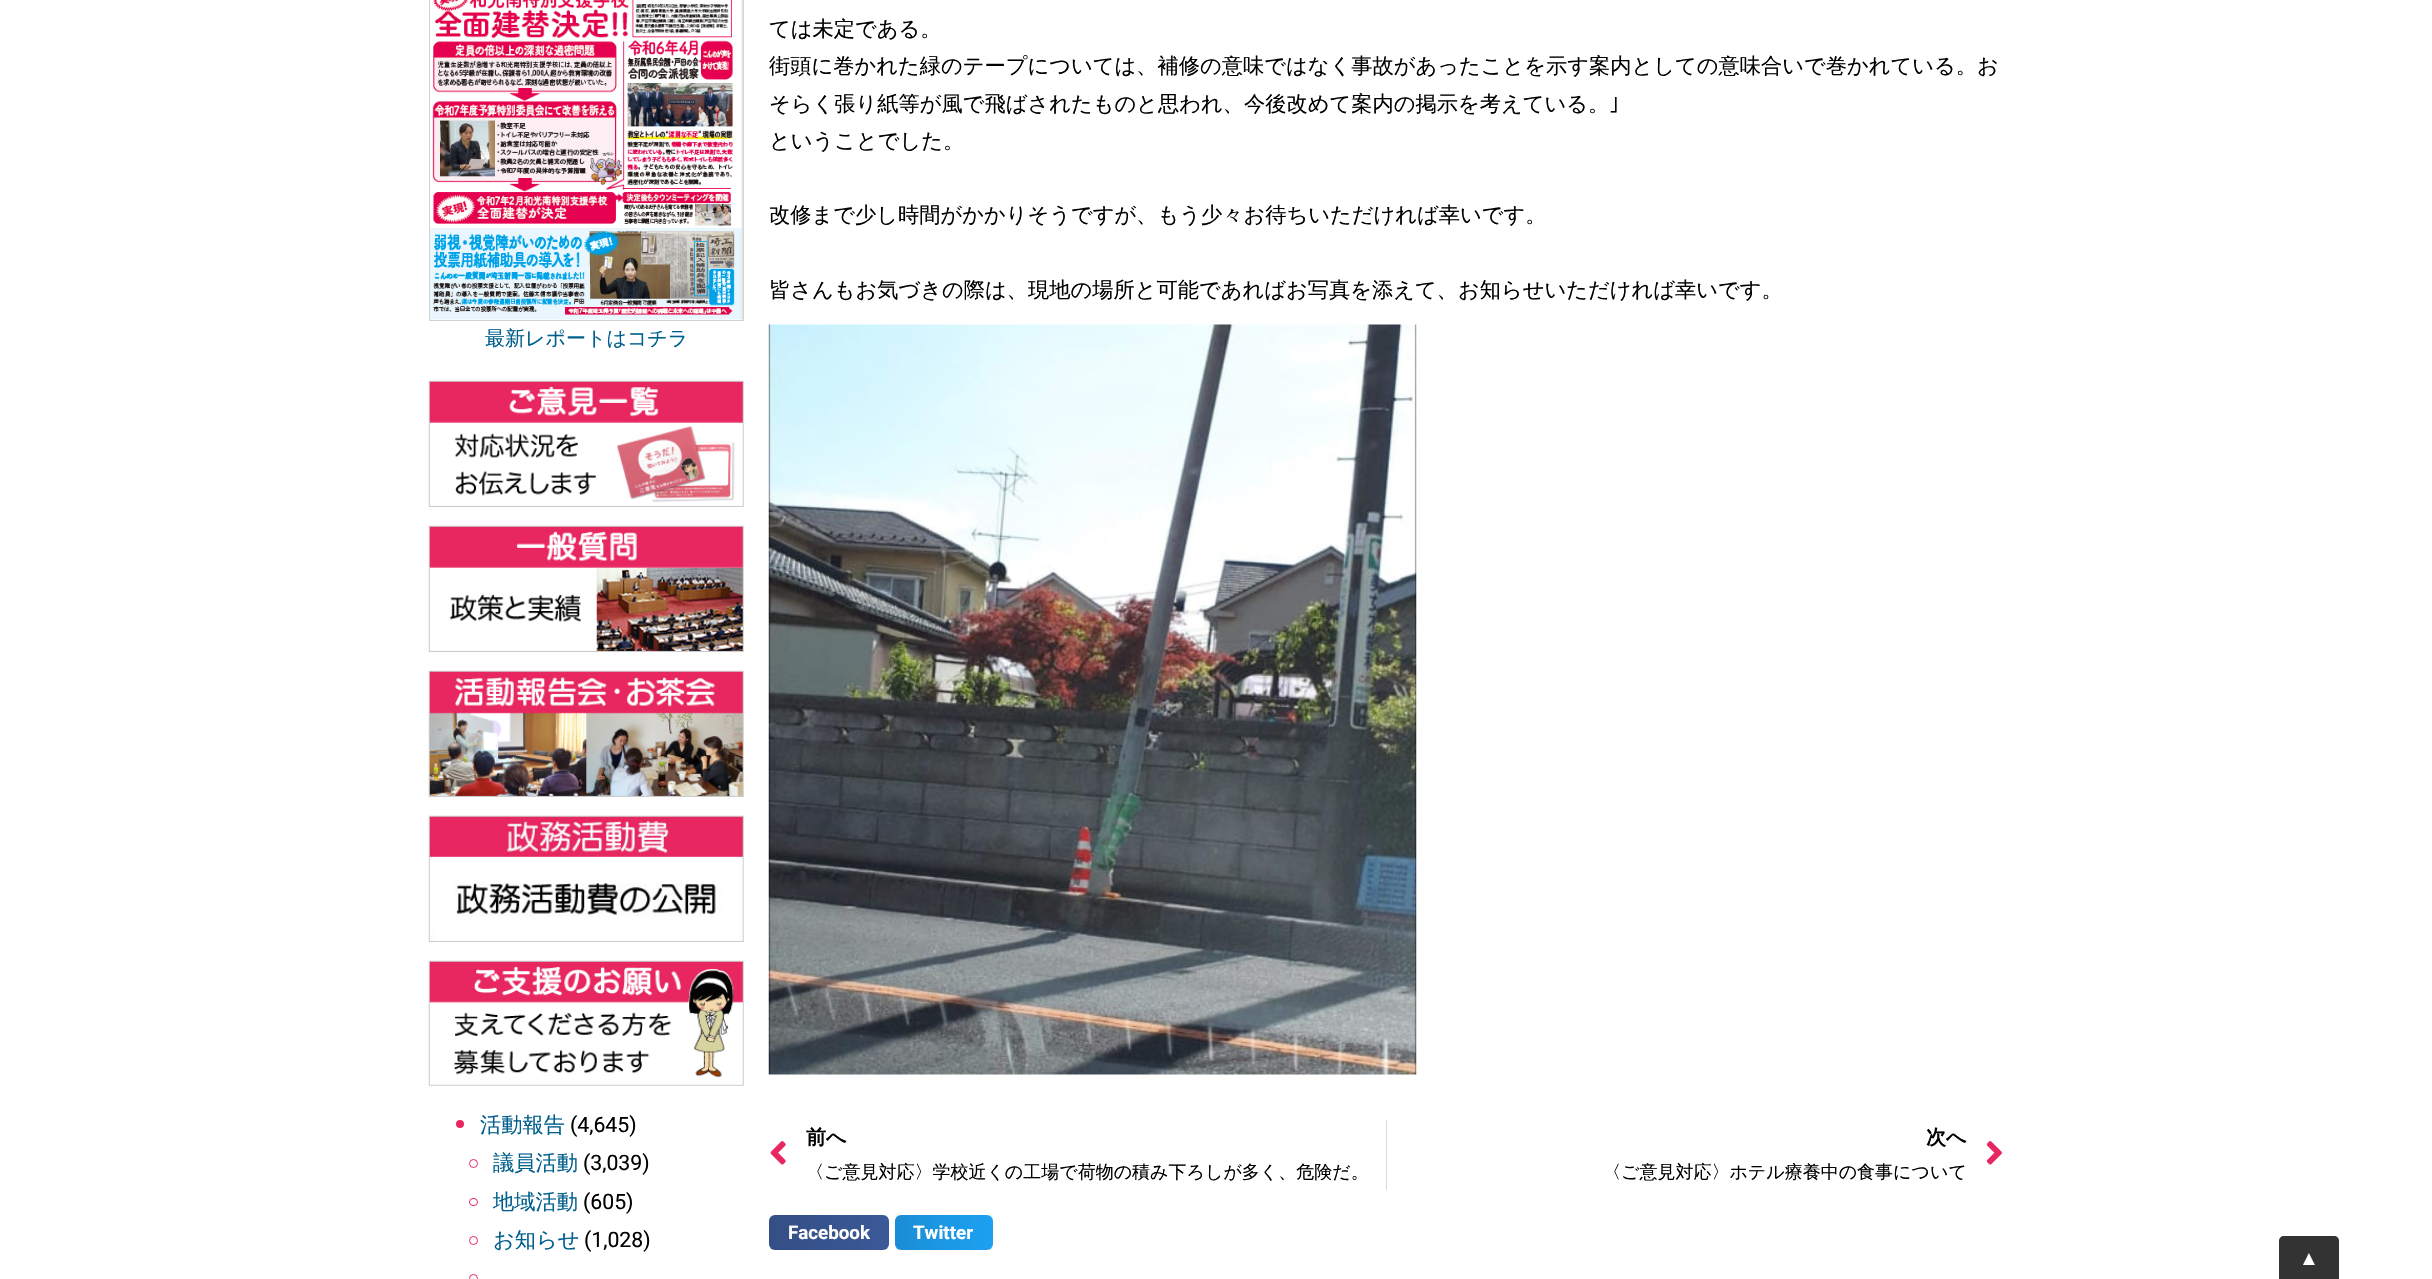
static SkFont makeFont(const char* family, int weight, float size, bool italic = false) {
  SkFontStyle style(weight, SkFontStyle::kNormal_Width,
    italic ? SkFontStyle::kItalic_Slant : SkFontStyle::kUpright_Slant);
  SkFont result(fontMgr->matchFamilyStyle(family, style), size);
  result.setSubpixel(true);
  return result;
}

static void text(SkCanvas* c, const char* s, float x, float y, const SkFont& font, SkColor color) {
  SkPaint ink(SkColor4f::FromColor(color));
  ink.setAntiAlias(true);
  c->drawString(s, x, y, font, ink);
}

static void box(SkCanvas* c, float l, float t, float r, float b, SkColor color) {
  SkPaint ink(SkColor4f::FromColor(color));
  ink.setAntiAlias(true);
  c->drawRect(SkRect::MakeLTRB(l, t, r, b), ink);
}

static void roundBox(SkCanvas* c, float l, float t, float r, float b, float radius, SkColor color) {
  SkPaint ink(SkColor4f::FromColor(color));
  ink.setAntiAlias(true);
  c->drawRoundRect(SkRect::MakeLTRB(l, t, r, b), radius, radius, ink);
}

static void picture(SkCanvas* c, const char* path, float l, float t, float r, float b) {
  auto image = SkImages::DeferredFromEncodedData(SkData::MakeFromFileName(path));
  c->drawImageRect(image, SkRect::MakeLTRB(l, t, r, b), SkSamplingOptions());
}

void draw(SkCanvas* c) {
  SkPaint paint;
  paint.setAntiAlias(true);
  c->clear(0xffffffff);
  paint.setStyle(SkPaint::kStroke_Style);
  paint.setStrokeWidth(1);
  paint.setColor(0xffd3d3d3);
  c->drawRect(SkRect::MakeLTRB(429.5f, -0.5f, 743.5f, 320.5f), paint);
  picture(c, "img_01.png", 430, 0, 743, 320);
  SkFont face1 = makeFont("WenQuanYi Zen Hei", 500, 20);
  text(c, "最新レポートはコチラ", 485, 345, face1, 0xff015f8d);
  picture(c, "img_02.png", 428, 380, 744, 507);
  picture(c, "img_03.png", 428, 525, 744, 652);
  picture(c, "img_04.png", 428, 670, 744, 797);
  picture(c, "img_05.png", 428, 815, 744, 942);
  picture(c, "img_06.png", 428, 960, 744, 1086);
  paint.setStyle(SkPaint::kFill_Style);
  paint.setColor(0xffe82761);
  c->drawCircle(460, 1124, 4, paint);
  SkFont face2 = makeFont("WenQuanYi Zen Hei", 500, 21.25f);
  text(c, "活動報告", 480, 1132, face2, 0xff015f8d);
  SkFont face3 = makeFont("Roboto", 400, 21.25f);
  text(c, "(4,645)", 570, 1132, face3, 0xff000000);
  paint.setStyle(SkPaint::kStroke_Style);
  c->drawCircle(473.5f, 1163.5f, 4, paint);
  text(c, "議員活動", 493, 1170, face2, 0xff015f8d);
  text(c, "(3,039)", 583, 1170, face3, 0xff000000);
  c->drawRoundRect(SkRect::MakeLTRB(469.5f, 1198.5f, 477.5f, 1205.5f), 3.5f, 3.5f, paint);
  text(c, "地域活動", 493, 1209, face2, 0xff015f8d);
  text(c, "(605)", 583, 1209, face3, 0xff000000);
  c->drawCircle(473.5f, 1240.5f, 4, paint);
  text(c, "お知らせ", 493, 1247, face2, 0xff015f8d);
  text(c, "(1,028)", 584, 1247, face3, 0xff000000);
  c->drawCircle(473.5f, 1278.5f, 4, paint);
  text(c, "ては未定である。", 769, 36, face2, 0xff000000);
  text(c, "街頭に巻かれた緑のテープについては、補修の意味ではなく事故があったことを示す案内としての意味合いで巻かれている。お", 769, 73, face2, 0xff000000);
  text(c, "そらく張り紙等が風で飛ばされたものと思われ、今後改めて案内の掲示を考えている。", 769, 111, face2, 0xff000000);
  SkFont face4 = makeFont("IPAPGothic", 400, 21.25f);
  text(c, "｣", 1609, 111, face4, 0xff000000);
  text(c, "ということでした。", 769, 148, face2, 0xff000000);
  text(c, "改修まで少し時間がかかりそうですが、もう少々お待ちいただければ幸いです。", 769, 222, face2, 0xff000000);
  text(c, "皆さんもお気づきの際は、現地の場所と可能であればお写真を添えて、お知らせいただければ幸いです。", 769, 297, face2, 0xff000000);
  picture(c, "img_07.png", 768, 324, 1417, 1075);
  picture(c, "img_08.png", 770, 1141, 786, 1165);
  SkFont face5 = makeFont("WenQuanYi Zen Hei", 700, 20);
  text(c, "前へ", 806, 1144, face5, 0xff000000);
  SkFont face6 = makeFont("WenQuanYi Zen Hei", 500, 18);
  text(c, "〈ご意見対応〉学校近くの工場で荷物の積み下ろしが多く、危険だ。", 806, 1178, face6, 0xff000000);
  box(c, 1386, 1120, 1387, 1190, 0xffd5d8dc);
  text(c, "次へ", 1926, 1144, face5, 0xff000000);
  text(c, "〈ご意見対応〉ホテル療養中の食事について", 1603, 1178, face6, 0xff000000);
  picture(c, "img_09.png", 1986, 1141, 2002, 1165);
  roundBox(c, 769, 1215, 889, 1250, 6, 0xff3b5998);
  paint.setStyle(SkPaint::kFill_Style);
  {
    const SkColor colors[] = {0x1f000000, 0x00000000};
    const float stops[] = {0, 1};
    const SkPoint ends[] = {{769, 1233}, {889, 1233}};
    paint.setShader(SkGradientShader::MakeLinear(ends, colors, stops, 2, SkTileMode::kClamp));
    paint.setAlpha(255);
  }
  c->drawRoundRect(SkRect::MakeLTRB(769, 1215, 889, 1250), 6, 6, paint);
  SkFont face7 = makeFont("Roboto", 700, 18.75f);
  text(c, "Facebook", 788, 1239, face7, 0xffffffff);
  roundBox(c, 895, 1215, 993, 1250, 6, 0xff1da1f2);
  {
    const SkColor colors[] = {0x1f000000, 0x00000000};
    const float stops[] = {0, 1};
    const SkPoint ends[] = {{895, 1233}, {993, 1233}};
    paint.setShader(SkGradientShader::MakeLinear(ends, colors, stops, 2, SkTileMode::kClamp));
    paint.setAlpha(255);
  }
  c->drawRoundRect(SkRect::MakeLTRB(895, 1215, 993, 1250), 6, 6, paint);
  text(c, "Twitter", 913, 1239, face7, 0xffffffff);
  paint.setShader(nullptr);
  paint.setColor(0xff333333);
  c->drawPath(SkPathBuilder().moveTo(2284, 1236).lineTo(2334, 1236).cubicTo(2337, 1236, 2339, 1238, 2339, 1241).lineTo(2339, 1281).lineTo(2279, 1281).lineTo(2279, 1241).cubicTo(2279, 1238, 2281, 1236, 2284, 1236).close().detach(), paint);
  SkFont face8 = makeFont("Liberation Sans", 400, 20);
  text(c, "▲", 2299, 1265, face8, 0xffffffff);
}
